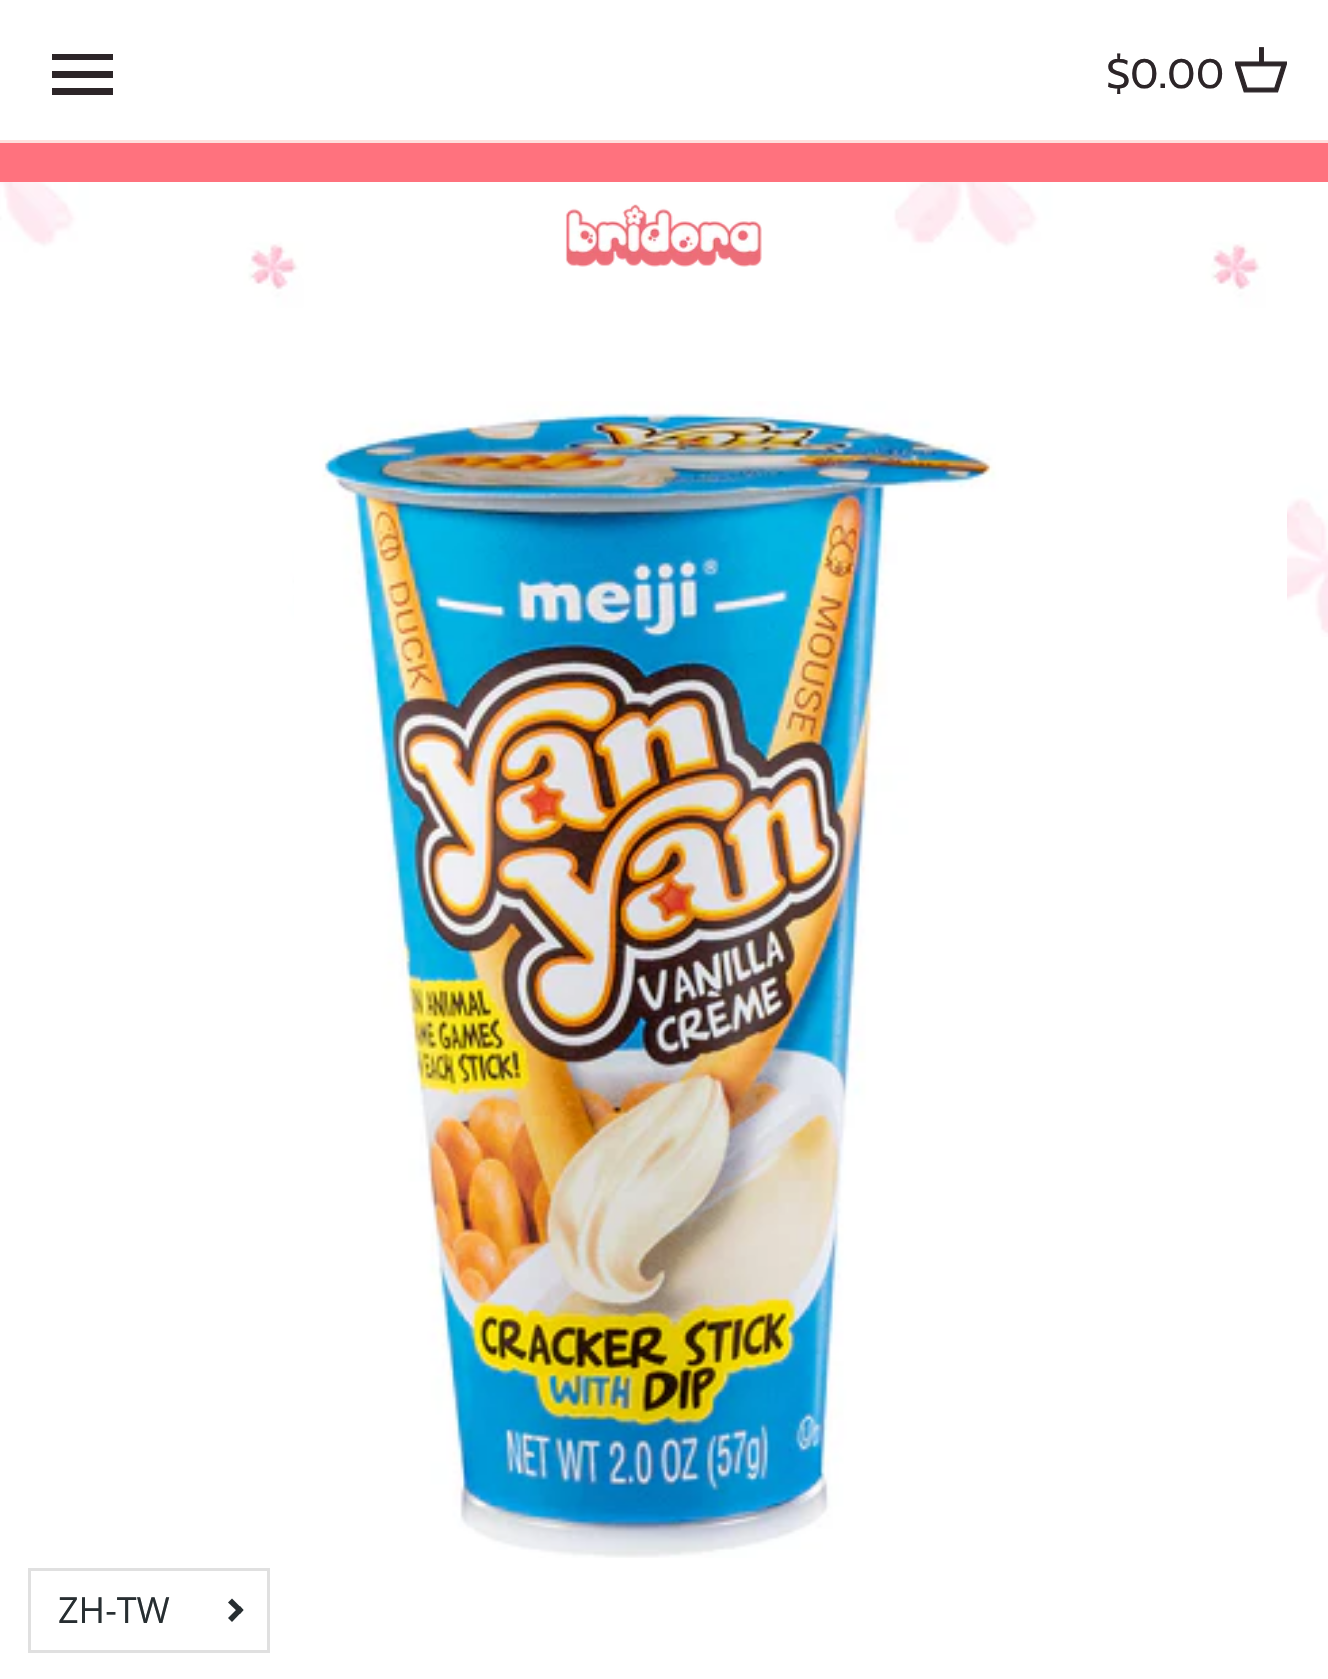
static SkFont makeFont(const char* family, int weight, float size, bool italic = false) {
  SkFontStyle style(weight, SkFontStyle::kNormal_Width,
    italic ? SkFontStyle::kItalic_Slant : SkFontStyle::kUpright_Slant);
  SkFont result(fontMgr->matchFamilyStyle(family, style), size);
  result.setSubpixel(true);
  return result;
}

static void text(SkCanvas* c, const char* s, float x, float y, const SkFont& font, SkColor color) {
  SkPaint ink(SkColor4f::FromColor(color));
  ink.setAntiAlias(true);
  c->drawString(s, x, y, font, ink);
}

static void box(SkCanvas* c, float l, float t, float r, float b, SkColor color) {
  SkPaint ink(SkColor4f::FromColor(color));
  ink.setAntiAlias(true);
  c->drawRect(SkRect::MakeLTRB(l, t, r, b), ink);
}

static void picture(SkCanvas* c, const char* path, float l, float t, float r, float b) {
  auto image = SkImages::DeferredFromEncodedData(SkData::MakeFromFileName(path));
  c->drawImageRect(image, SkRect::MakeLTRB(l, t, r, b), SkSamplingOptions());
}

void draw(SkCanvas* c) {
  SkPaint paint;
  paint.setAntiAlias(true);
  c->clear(0xffffffff);
  picture(c, "img_01.png", 0, 182, 1328, 637);
  box(c, 0, 140, 1328, 143, 0xffffdfdd);
  paint.setColor(0xff2c2528);
  c->drawPath(SkPathBuilder().moveTo(52, 95).lineTo(113, 95).lineTo(113, 88).lineTo(52, 88).close().moveTo(52, 78).lineTo(113, 78).lineTo(113, 71).lineTo(52, 71).close().moveTo(52, 54).lineTo(52, 60).lineTo(113, 60).lineTo(113, 54).close().detach(), paint);
  SkFont face1 = makeFont("Cabin", 400, 41);
  text(c, "$0.00", 1106, 88, face1, 0xff2c2528);
  picture(c, "img_02.png", 1235, 47, 1287, 93);
  picture(c, "img_03.png", 565, 204, 762, 267);
  box(c, 0, 143, 1328, 182, 0xffff727e);
  picture(c, "img_04.png", 294, 401, 1287, 1558);
  paint.setStyle(SkPaint::kStroke_Style);
  paint.setStrokeWidth(3);
  paint.setColor(0xffe0e0e0);
  c->drawRect(SkRect::MakeLTRB(29.5f, 1569.5f, 268.5f, 1651.5f), paint);
  SkFont face2 = makeFont("Open Sans", 400, 36);
  text(c, "ZH-TW", 58, 1623, face2, 0xff272e31);
  paint.setStyle(SkPaint::kFill_Style);
  paint.setColor(0xff272e31);
  c->drawPath(SkPathBuilder().moveTo(232, 1598.5f).lineTo(243.5f, 1610).lineTo(240, 1614).lineTo(228, 1602.5f).close().detach(), paint);
  c->drawPath(SkPathBuilder().moveTo(240, 1606).lineTo(243.5f, 1610).lineTo(232, 1622).lineTo(228, 1618).close().detach(), paint);
}
